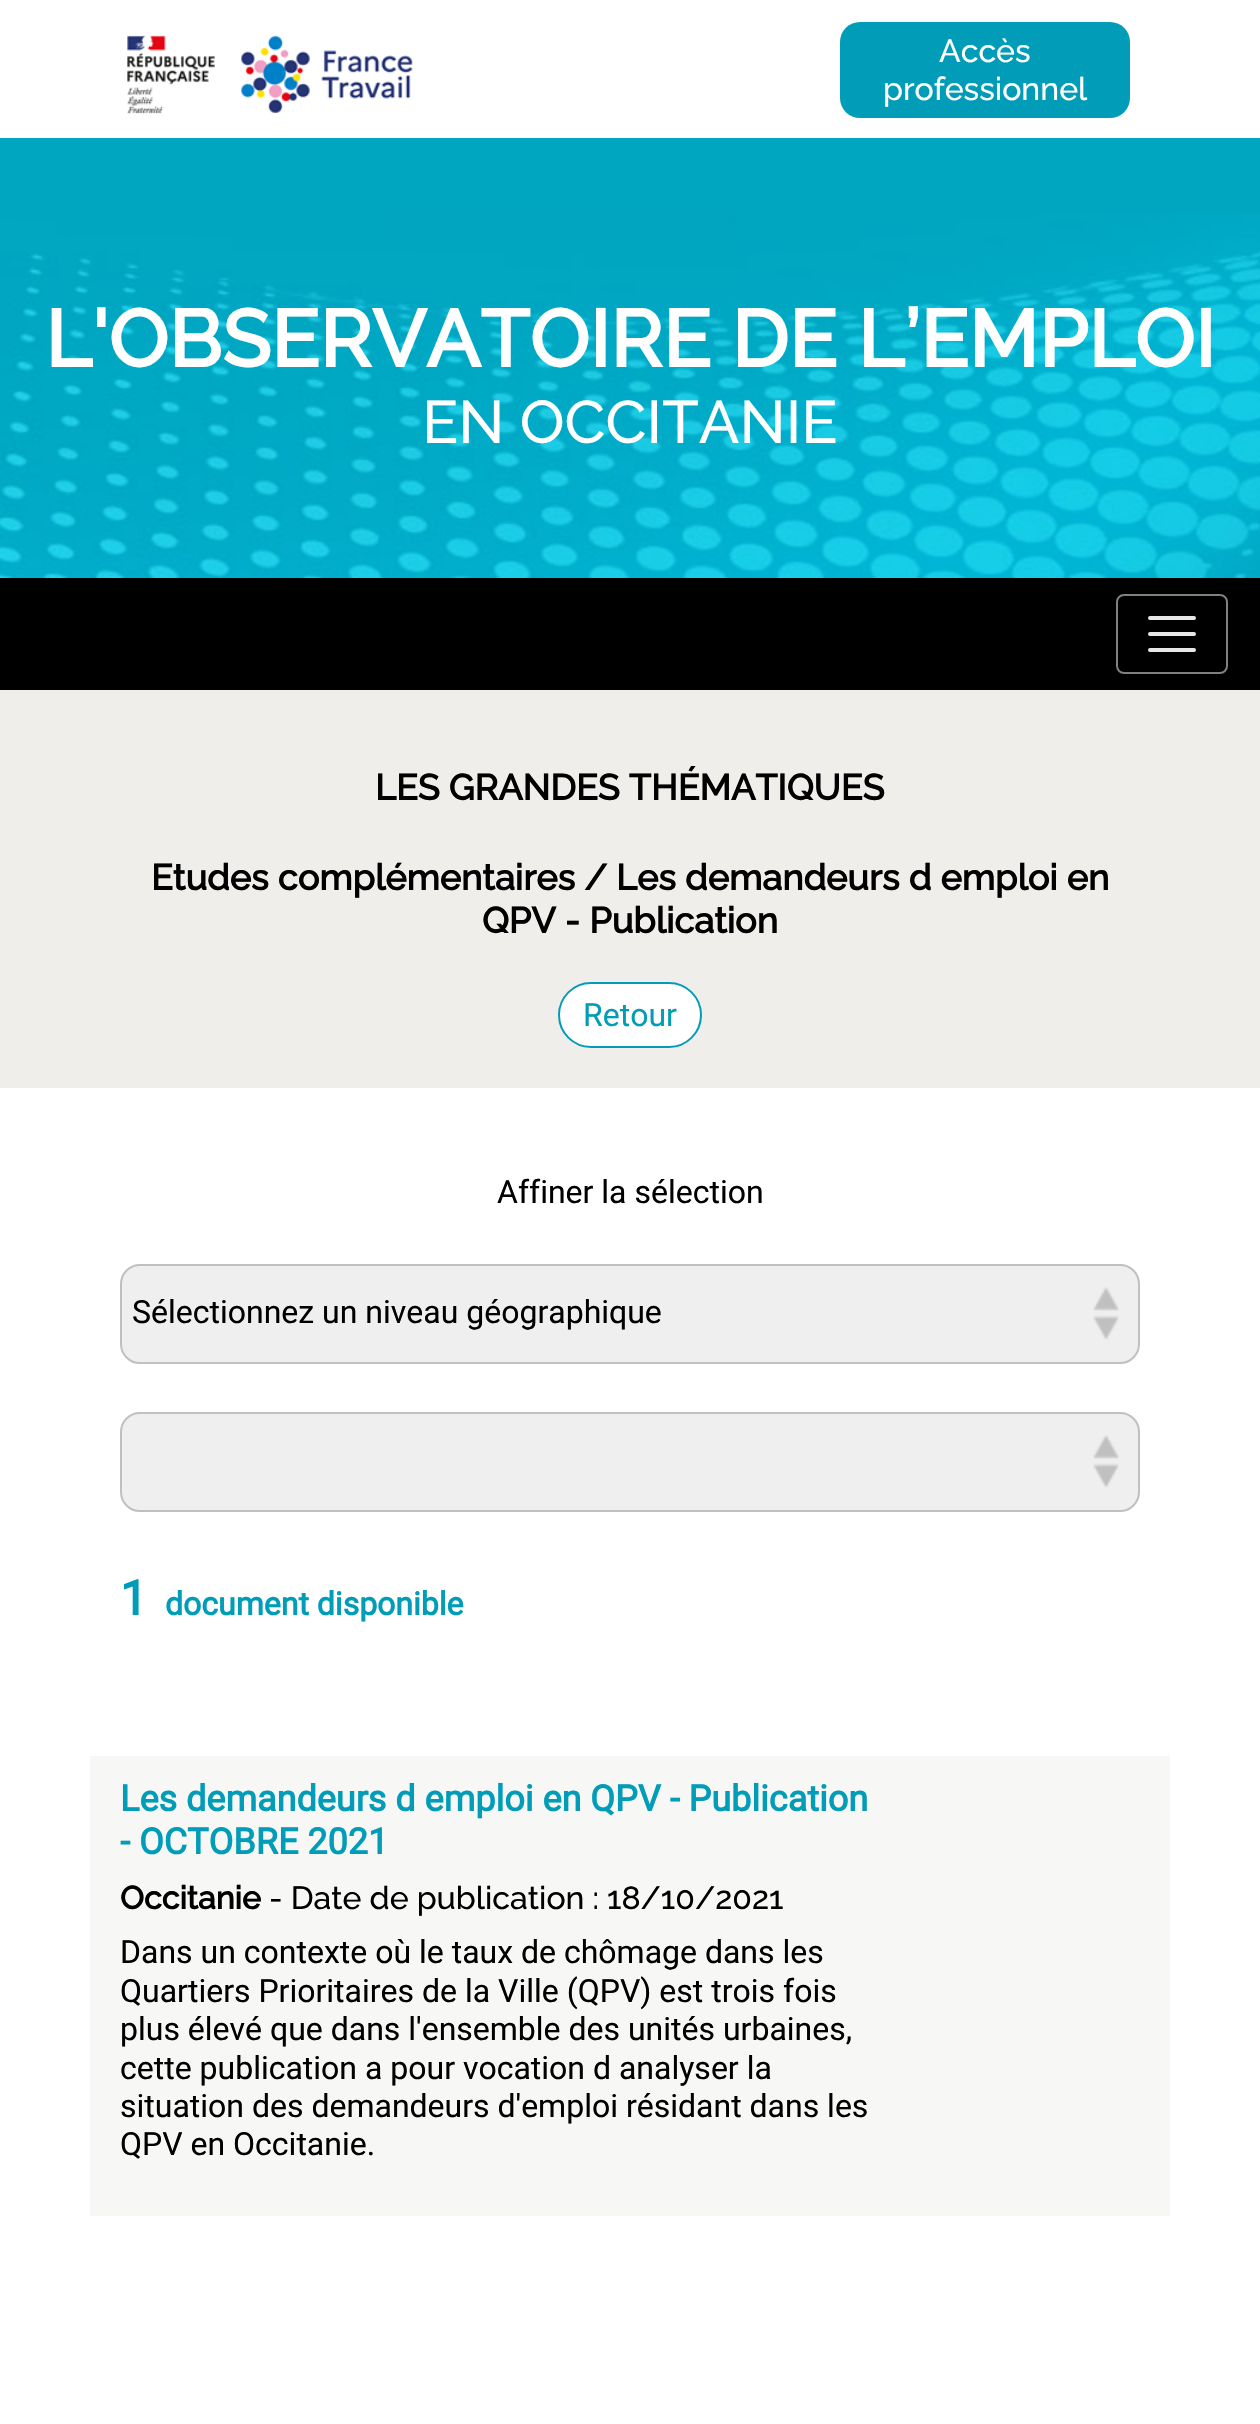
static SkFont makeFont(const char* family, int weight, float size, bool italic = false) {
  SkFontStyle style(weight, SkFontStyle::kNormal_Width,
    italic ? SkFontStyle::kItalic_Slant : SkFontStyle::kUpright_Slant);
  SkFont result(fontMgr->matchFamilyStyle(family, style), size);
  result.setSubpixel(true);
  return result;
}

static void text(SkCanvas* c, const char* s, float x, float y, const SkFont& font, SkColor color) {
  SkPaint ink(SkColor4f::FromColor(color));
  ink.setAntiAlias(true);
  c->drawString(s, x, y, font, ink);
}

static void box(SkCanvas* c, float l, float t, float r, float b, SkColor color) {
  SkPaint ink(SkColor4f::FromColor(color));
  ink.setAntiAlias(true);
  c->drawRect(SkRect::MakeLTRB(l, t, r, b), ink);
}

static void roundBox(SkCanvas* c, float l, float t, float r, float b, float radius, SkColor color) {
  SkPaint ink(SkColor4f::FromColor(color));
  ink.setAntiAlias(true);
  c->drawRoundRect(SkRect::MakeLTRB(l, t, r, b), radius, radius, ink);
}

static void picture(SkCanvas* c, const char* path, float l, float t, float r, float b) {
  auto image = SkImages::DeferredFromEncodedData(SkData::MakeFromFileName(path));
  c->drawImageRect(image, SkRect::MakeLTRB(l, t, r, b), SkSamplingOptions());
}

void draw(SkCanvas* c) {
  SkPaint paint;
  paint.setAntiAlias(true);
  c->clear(0xffffffff);
  picture(c, "img_01.png", 127, 35, 413, 114);
  roundBox(c, 840, 22, 1130, 118, 20, 0xff009cb8);
  SkFont face1 = makeFont("Raleway", 500, 32);
  text(c, "Accès", 939, 62, face1, 0xffffffff);
  text(c, "professionnel", 883, 100, face1, 0xffffffff);
  box(c, 0, 138, 1260, 213, 0xff00a5bf);
  picture(c, "img_02.png", 0, 213, 1260, 578);
  SkFont face2 = makeFont("Raleway", 700, 80);
  text(c, "L'OBSERVATOIRE DE L’EMPLOI", 45, 367, face2, 0xffffffff);
  SkFont face3 = makeFont("Raleway", 500, 60);
  text(c, "EN OCCITANIE", 422, 443, face3, 0xffffffff);
  box(c, 0, 578, 1260, 690, 0xff000000);
  paint.setStyle(SkPaint::kStroke_Style);
  paint.setStrokeWidth(2);
  paint.setColor(0xff808080);
  c->drawRoundRect(SkRect::MakeLTRB(1117, 595, 1227, 673), 7, 7, paint);
  paint.setStrokeWidth(4);
  paint.setStrokeCap(SkPaint::kRound_Cap);
  paint.setColor(0xffe6e6e6);
  c->drawPath(SkPathBuilder().moveTo(1150, 618).lineTo(1194, 618).moveTo(1150, 634).lineTo(1194, 634).moveTo(1150, 650).lineTo(1194, 650).detach(), paint);
  box(c, 0, 690, 1260, 1088, 0xffefeeea);
  SkFont face4 = makeFont("Raleway", 700, 36);
  text(c, "LES GRANDES THÉMATIQUES", 375, 800, face4, 0xff000000);
  text(c, "Etudes complémentaires / Les demandeurs d emploi en", 151, 890, face4, 0xff000000);
  text(c, "QPV - Publication", 482, 933, face4, 0xff000000);
  paint.setStyle(SkPaint::kFill_Style);
  paint.setColor(0xffffffff);
  c->drawRoundRect(SkRect::MakeLTRB(559, 983, 701, 1047), 32, 32, paint);
  paint.setStyle(SkPaint::kStroke_Style);
  paint.setStrokeWidth(2);
  paint.setStrokeCap(SkPaint::kButt_Cap);
  paint.setColor(0xff009cb8);
  c->drawRoundRect(SkRect::MakeLTRB(559, 983, 701, 1047), 32, 32, paint);
  SkFont face5 = makeFont("Roboto", 400, 32);
  text(c, "Retour", 583, 1026, face5, 0xff009cb8);
  text(c, "Affiner la sélection", 497, 1203, face5, 0xff000000);
  paint.setStyle(SkPaint::kFill_Style);
  paint.setColor(0xffefefef);
  c->drawRoundRect(SkRect::MakeLTRB(121, 1265, 1139, 1363), 19, 19, paint);
  paint.setStyle(SkPaint::kStroke_Style);
  paint.setColor(0xffc0c0c0);
  c->drawRoundRect(SkRect::MakeLTRB(121, 1265, 1139, 1363), 19, 19, paint);
  text(c, "Sélectionnez un niveau géographique", 132, 1323, face5, 0xff000000);
  picture(c, "img_03.png", 1093, 1287, 1119, 1340);
  paint.setStyle(SkPaint::kFill_Style);
  paint.setColor(0xffefefef);
  c->drawRoundRect(SkRect::MakeLTRB(121, 1413, 1139, 1511), 19, 19, paint);
  paint.setStyle(SkPaint::kStroke_Style);
  paint.setColor(0xffc0c0c0);
  c->drawRoundRect(SkRect::MakeLTRB(121, 1413, 1139, 1511), 19, 19, paint);
  picture(c, "img_03.png", 1093, 1435, 1119, 1488);
  SkFont face6 = makeFont("Roboto", 700, 48);
  text(c, "1", 120, 1615, face6, 0xff009cb8);
  SkFont face7 = makeFont("Roboto", 700, 32);
  text(c, "document disponible", 165, 1615, face7, 0xff009cb8);
  box(c, 90, 1756, 1170, 2216, 0xfff7f7f5);
  SkFont face8 = makeFont("Roboto", 700, 36);
  text(c, "Les demandeurs d emploi en QPV - Publication", 120, 1811, face8, 0xff009cb8);
  text(c, "- OCTOBRE 2021", 120, 1854, face8, 0xff009cb8);
  SkFont face9 = makeFont("Raleway", 700, 32);
  text(c, "Occitanie", 120, 1909, face9, 0xff000000);
  text(c, "- Date de publication : 18/10/2021", 269, 1909, face1, 0xff000000);
  text(c, "Dans un contexte où le taux de chômage dans les", 120, 1963, face5, 0xff000000);
  text(c, "Quartiers Prioritaires de la Ville (QPV) est trois fois", 120, 2002, face5, 0xff000000);
  text(c, "plus élevé que dans l'ensemble des unités urbaines,", 120, 2040, face5, 0xff000000);
  text(c, "cette publication a pour vocation d analyser la", 120, 2079, face5, 0xff000000);
  text(c, "situation des demandeurs d'emploi résidant dans les", 120, 2117, face5, 0xff000000);
  text(c, "QPV en Occitanie.", 120, 2155, face5, 0xff000000);
}
